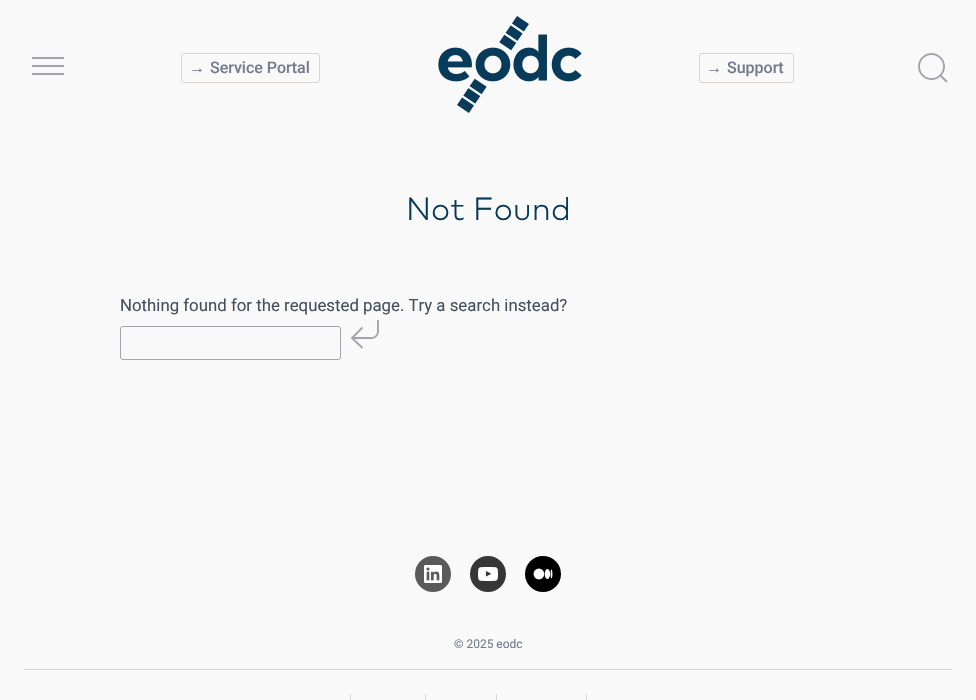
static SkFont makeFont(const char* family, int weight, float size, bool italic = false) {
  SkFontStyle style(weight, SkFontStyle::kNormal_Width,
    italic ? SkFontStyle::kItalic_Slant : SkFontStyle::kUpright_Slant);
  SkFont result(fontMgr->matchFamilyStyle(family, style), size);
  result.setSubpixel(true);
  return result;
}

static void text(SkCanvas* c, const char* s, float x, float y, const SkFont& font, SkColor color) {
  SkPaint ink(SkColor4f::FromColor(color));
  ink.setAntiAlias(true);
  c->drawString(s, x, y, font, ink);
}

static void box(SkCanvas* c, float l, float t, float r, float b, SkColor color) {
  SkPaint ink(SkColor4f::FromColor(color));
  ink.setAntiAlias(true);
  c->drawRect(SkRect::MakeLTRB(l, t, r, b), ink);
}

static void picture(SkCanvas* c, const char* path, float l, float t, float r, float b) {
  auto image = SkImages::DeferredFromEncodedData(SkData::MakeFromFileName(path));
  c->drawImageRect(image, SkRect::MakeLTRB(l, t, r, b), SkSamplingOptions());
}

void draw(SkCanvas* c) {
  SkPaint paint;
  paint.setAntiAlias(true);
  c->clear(0xfff9f9f9);
  box(c, 32, 65, 64, 67, 0xffa4a4aa);
  box(c, 32, 57, 64, 59, 0xffa4a4aa);
  box(c, 32, 73, 64, 75, 0xffa4a4aa);
  paint.setStyle(SkPaint::kStroke_Style);
  paint.setStrokeWidth(1);
  paint.setColor(0xffdbd5d2);
  c->drawRoundRect(SkRect::MakeLTRB(181.5f, 53.5f, 319.5f, 82.5f), 2.5f, 2.5f, paint);
  SkFont face1 = makeFont("Liberation Sans", 400, 16);
  text(c, "→", 189, 73, face1, 0xff737b8d);
  SkFont face2 = makeFont("Roboto", 500, 16);
  text(c, "Service Portal", 210, 73, face2, 0xff737b8d);
  picture(c, "img_01.png", 438, 16, 582, 113);
  c->drawRoundRect(SkRect::MakeLTRB(699.5f, 53.5f, 793.5f, 82.5f), 2.5f, 2.5f, paint);
  text(c, "→", 706, 73, face1, 0xff737b8d);
  text(c, "Support", 727, 73, face2, 0xff737b8d);
  paint.setStrokeWidth(1.9f);
  paint.setColor(0xffa4a4aa);
  c->drawCircle(931.5f, 66.5f, 12.5f, paint);
  c->drawPath(SkPathBuilder().moveTo(940, 75).lineTo(947, 82).detach(), paint);
  SkFont face3 = makeFont("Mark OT", 300, 32);
  text(c, "Not Found", 406, 220, face3, 0xff083a59);
  SkFont face4 = makeFont("Roboto", 400, 16.8f);
  text(c, "Nothing found for the requested page. Try a search instead?", 120, 311, face4, 0xff45505d);
  paint.setStrokeWidth(1);
  c->drawRoundRect(SkRect::MakeLTRB(120.5f, 326.5f, 340.5f, 359.5f), 2.5f, 2.5f, paint);
  paint.setStrokeWidth(1.9f);
  c->drawPath(SkPathBuilder().moveTo(362.5f, 327.5f).lineTo(352, 338).lineTo(362.5f, 348).moveTo(352, 338).lineTo(371.5f, 338).cubicTo(375, 338, 378, 335, 378, 331.5f).lineTo(378, 320).detach(), paint);
  paint.setStyle(SkPaint::kFill_Style);
  paint.setColor(0xff5a5a5a);
  c->drawCircle(433, 574, 18, paint);
  picture(c, "img_02.png", 424, 565, 442, 583);
  paint.setColor(0xff363636);
  c->drawCircle(488, 574, 18, paint);
  picture(c, "img_03.png", 478, 567, 498, 581);
  paint.setColor(0xff000000);
  c->drawCircle(543, 574, 18, paint);
  picture(c, "img_04.png", 533, 568, 553, 580);
  SkFont face5 = makeFont("Roboto", 400, 12);
  text(c, "© 2025 eodc", 454, 648, face5, 0xff737b8d);
  box(c, 24, 669, 952, 670, 0xffdbd5d2);
  box(c, 350, 694, 351, 700, 0xffdbd5d2);
  box(c, 425, 694, 426, 700, 0xffdbd5d2);
  box(c, 496, 694, 497, 700, 0xffdbd5d2);
  box(c, 586, 694, 587, 700, 0xffdbd5d2);
}
